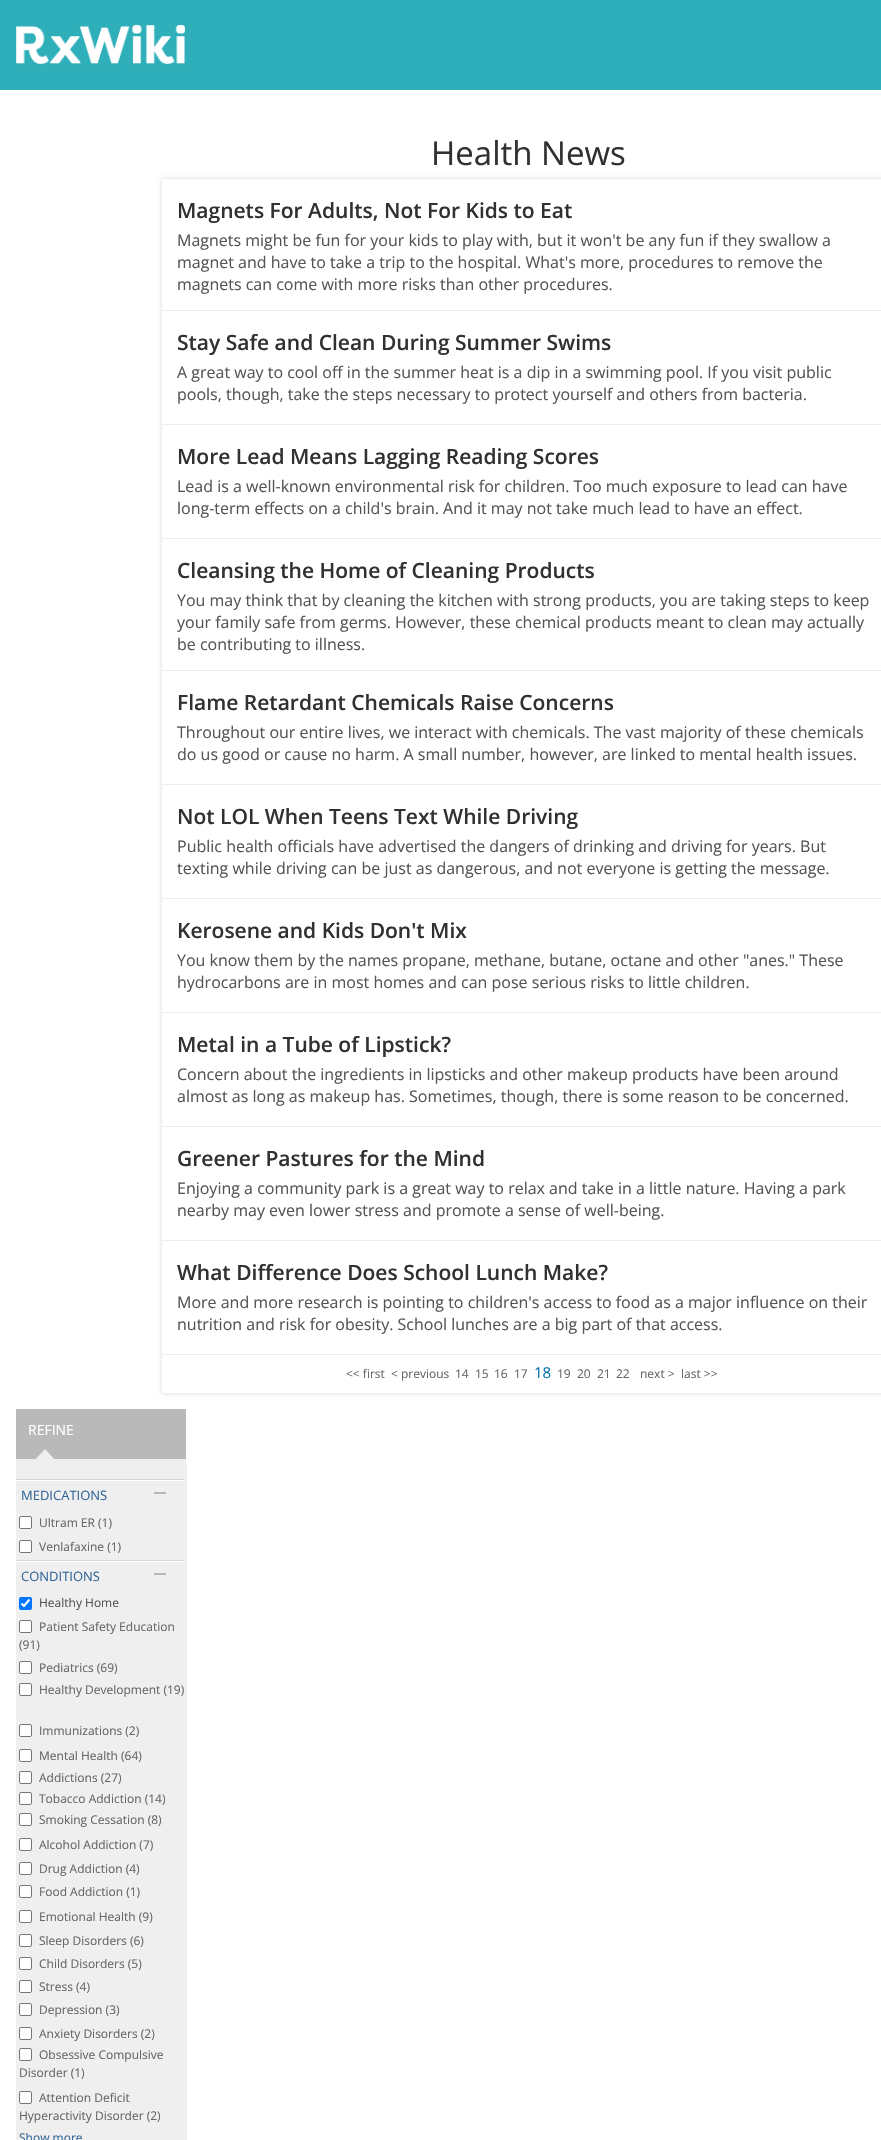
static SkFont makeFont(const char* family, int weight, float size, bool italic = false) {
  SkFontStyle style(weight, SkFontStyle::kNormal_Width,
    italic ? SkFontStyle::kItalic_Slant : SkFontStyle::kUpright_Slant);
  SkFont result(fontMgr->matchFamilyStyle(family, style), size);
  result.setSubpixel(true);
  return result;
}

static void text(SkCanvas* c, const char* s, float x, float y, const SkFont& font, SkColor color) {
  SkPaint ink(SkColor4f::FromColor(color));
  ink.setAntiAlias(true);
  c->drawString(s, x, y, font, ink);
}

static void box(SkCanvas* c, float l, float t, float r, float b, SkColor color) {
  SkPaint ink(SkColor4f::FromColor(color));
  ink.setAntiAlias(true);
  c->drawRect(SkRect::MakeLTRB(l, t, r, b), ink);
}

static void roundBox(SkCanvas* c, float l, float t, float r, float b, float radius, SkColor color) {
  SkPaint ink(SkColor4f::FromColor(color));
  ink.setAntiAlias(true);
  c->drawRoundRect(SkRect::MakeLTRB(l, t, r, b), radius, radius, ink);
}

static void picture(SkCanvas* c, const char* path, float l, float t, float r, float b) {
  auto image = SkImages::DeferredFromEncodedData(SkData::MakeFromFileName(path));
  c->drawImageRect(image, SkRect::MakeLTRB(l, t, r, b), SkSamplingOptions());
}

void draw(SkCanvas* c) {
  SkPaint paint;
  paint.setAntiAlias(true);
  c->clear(0xffffffff);
  box(c, 0, 0, 881, 90, 0xff2fafb9);
  picture(c, "img_01.png", 16, 25, 185, 65);
  SkFont face1 = makeFont("Open Sans", 400, 33);
  text(c, "Health News", 431, 165, face1, 0xff313131);
  c->save();
  c->clipPath(SkPathBuilder(SkPathFillType::kEvenOdd).moveTo(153, 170).lineTo(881, 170).lineTo(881, 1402).lineTo(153, 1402).close().moveTo(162, 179).lineTo(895, 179).lineTo(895, 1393).lineTo(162, 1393).close().detach(), true);
  paint.setColor(0xffd7d7d7);
  paint.setMaskFilter(SkMaskFilter::MakeBlur(kNormal_SkBlurStyle, 2.5f));
  c->drawRect(SkRect::MakeLTRB(162, 179, 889, 1393), paint);
  paint.setMaskFilter(nullptr);
  c->restore();
  box(c, 162, 310, 881, 311, 0xffededed);
  SkFont face2 = makeFont("Open Sans", 600, 21);
  text(c, "Magnets For Adults, Not For Kids to Eat", 177, 218, face2, 0xff313131);
  SkFont face3 = makeFont("Open Sans", 400, 16);
  text(c, "Magnets might be fun for your kids to play with, but it won't be any fun if they swallow a", 177, 246, face3, 0xff555555);
  text(c, "magnet and have to take a trip to the hospital. What's more, procedures to remove the", 177, 268, face3, 0xff555555);
  text(c, "magnets can come with more risks than other procedures.", 177, 290, face3, 0xff555555);
  box(c, 162, 424, 881, 425, 0xffededed);
  text(c, "Stay Safe and Clean During Summer Swims", 177, 350, face2, 0xff313131);
  text(c, "A great way to cool off in the summer heat is a dip in a swimming pool. If you visit public", 177, 378, face3, 0xff555555);
  text(c, "pools, though, take the steps necessary to protect yourself and others from bacteria.", 177, 400, face3, 0xff555555);
  box(c, 162, 538, 881, 539, 0xffededed);
  text(c, "More Lead Means Lagging Reading Scores", 177, 464, face2, 0xff313131);
  text(c, "Lead is a well-known environmental risk for children. Too much exposure to lead can have", 177, 492, face3, 0xff555555);
  text(c, "long-term effects on a child's brain. And it may not take much lead to have an effect.", 177, 514, face3, 0xff555555);
  box(c, 162, 670, 881, 671, 0xffededed);
  text(c, "Cleansing the Home of Cleaning Products", 177, 578, face2, 0xff313131);
  text(c, "You may think that by cleaning the kitchen with strong products, you are taking steps to keep", 177, 606, face3, 0xff555555);
  text(c, "your family safe from germs. However, these chemical products meant to clean may actually", 177, 628, face3, 0xff555555);
  text(c, "be contributing to illness.", 177, 650, face3, 0xff555555);
  box(c, 162, 784, 881, 785, 0xffededed);
  text(c, "Flame Retardant Chemicals Raise Concerns", 177, 710, face2, 0xff313131);
  text(c, "Throughout our entire lives, we interact with chemicals. The vast majority of these chemicals", 177, 738, face3, 0xff555555);
  text(c, "do us good or cause no harm. A small number, however, are linked to mental health issues.", 177, 760, face3, 0xff555555);
  box(c, 162, 898, 881, 899, 0xffededed);
  text(c, "Not LOL When Teens Text While Driving", 177, 824, face2, 0xff313131);
  text(c, "Public health officials have advertised the dangers of drinking and driving for years. But", 177, 852, face3, 0xff555555);
  text(c, "texting while driving can be just as dangerous, and not everyone is getting the message.", 177, 874, face3, 0xff555555);
  box(c, 162, 1012, 881, 1013, 0xffededed);
  text(c, "Kerosene and Kids Don't Mix", 177, 938, face2, 0xff313131);
  text(c, "You know them by the names propane, methane, butane, octane and other \"anes.\" These", 177, 966, face3, 0xff555555);
  text(c, "hydrocarbons are in most homes and can pose serious risks to little children.", 177, 988, face3, 0xff555555);
  box(c, 162, 1126, 881, 1127, 0xffededed);
  text(c, "Metal in a Tube of Lipstick?", 177, 1052, face2, 0xff313131);
  text(c, "Concern about the ingredients in lipsticks and other makeup products have been around", 177, 1080, face3, 0xff555555);
  text(c, "almost as long as makeup has. Sometimes, though, there is some reason to be concerned.", 177, 1102, face3, 0xff555555);
  box(c, 162, 1240, 881, 1241, 0xffededed);
  text(c, "Greener Pastures for the Mind", 177, 1166, face2, 0xff313131);
  text(c, "Enjoying a community park is a great way to relax and take in a little nature. Having a park", 177, 1194, face3, 0xff555555);
  text(c, "nearby may even lower stress and promote a sense of well-being.", 177, 1216, face3, 0xff555555);
  box(c, 162, 1354, 881, 1355, 0xffededed);
  text(c, "What Difference Does School Lunch Make?", 177, 1280, face2, 0xff313131);
  text(c, "More and more research is pointing to children's access to food as a major influence on their", 177, 1308, face3, 0xff555555);
  text(c, "nutrition and risk for obesity. School lunches are a big part of that access.", 177, 1330, face3, 0xff555555);
  SkFont face4 = makeFont("Open Sans", 400, 12);
  text(c, "<< first", 346, 1378, face4, 0xff666666);
  text(c, "< previous", 391, 1378, face4, 0xff666666);
  text(c, "14", 455, 1378, face4, 0xff666666);
  text(c, "15", 475, 1378, face4, 0xff666666);
  text(c, "16", 494, 1378, face4, 0xff666666);
  text(c, "17", 514, 1378, face4, 0xff666666);
  SkFont face5 = makeFont("Open Sans", 400, 15);
  text(c, "18", 534, 1378, face5, 0xff016ead);
  text(c, "19", 557, 1378, face4, 0xff666666);
  text(c, "20", 577, 1378, face4, 0xff666666);
  text(c, "21", 597, 1378, face4, 0xff666666);
  text(c, "22", 616, 1378, face4, 0xff666666);
  text(c, "next >", 640, 1378, face4, 0xff666666);
  text(c, "last >>", 681, 1378, face4, 0xff666666);
  box(c, 16, 1459, 186, 1464, 0xffefefef);
  box(c, 16, 1409, 186, 1459, 0xffbab9b9);
  picture(c, "img_02.png", 36, 1449, 54, 1459);
  SkFont face6 = makeFont("Open Sans", 400, 14);
  text(c, "REFINE", 28, 1435, face6, 0xffffffff);
  box(c, 16, 1464, 187, 2140, 0xffefefef);
  box(c, 16, 1479, 184, 1480, 0xffd6d4d4);
  box(c, 16, 1480, 184, 1481, 0xffffffff);
  box(c, 16, 1560, 184, 1561, 0xffd6d4d4);
  box(c, 154, 1492, 166, 1494, 0xffbab9b9);
  SkFont face7 = makeFont("Open Sans", 400, 13);
  text(c, "MEDICATIONS", 21, 1500, face7, 0xff336699);
  paint.setColor(0xffffffff);
  c->drawRoundRect(SkRect::MakeLTRB(19.5f, 1516.5f, 31.5f, 1528.5f), 1.5f, 1.5f, paint);
  paint.setStyle(SkPaint::kStroke_Style);
  paint.setStrokeWidth(1);
  paint.setColor(0xff767676);
  c->drawRoundRect(SkRect::MakeLTRB(19.5f, 1516.5f, 31.5f, 1528.5f), 1.5f, 1.5f, paint);
  text(c, "Ultram ER (1)", 39, 1527, face4, 0xff666666);
  paint.setStyle(SkPaint::kFill_Style);
  paint.setColor(0xffffffff);
  c->drawRoundRect(SkRect::MakeLTRB(19.5f, 1540.5f, 31.5f, 1552.5f), 1.5f, 1.5f, paint);
  paint.setStyle(SkPaint::kStroke_Style);
  paint.setColor(0xff767676);
  c->drawRoundRect(SkRect::MakeLTRB(19.5f, 1540.5f, 31.5f, 1552.5f), 1.5f, 1.5f, paint);
  text(c, "Venlafaxine (1)", 39, 1551, face4, 0xff666666);
  box(c, 16, 1561, 184, 1562, 0xffffffff);
  box(c, 154, 1573, 166, 1575, 0xffbab9b9);
  text(c, "CONDITIONS", 21, 1581, face7, 0xff336699);
  roundBox(c, 19, 1597, 32, 1610, 2, 0xff0075ff);
  paint.setStrokeWidth(2.1f);
  paint.setColor(0xffffffff);
  c->drawPath(SkPathBuilder().moveTo(21.5f, 1603.5f).lineTo(24, 1606).lineTo(29.5f, 1599.5f).detach(), paint);
  text(c, "Healthy Home", 39, 1607, face4, 0xff555555);
  paint.setStyle(SkPaint::kFill_Style);
  c->drawRoundRect(SkRect::MakeLTRB(19.5f, 1620.5f, 31.5f, 1632.5f), 1.5f, 1.5f, paint);
  paint.setStyle(SkPaint::kStroke_Style);
  paint.setStrokeWidth(1);
  paint.setColor(0xff767676);
  c->drawRoundRect(SkRect::MakeLTRB(19.5f, 1620.5f, 31.5f, 1632.5f), 1.5f, 1.5f, paint);
  text(c, "Patient Safety Education", 39, 1631, face4, 0xff666666);
  text(c, "(91)", 19, 1649, face4, 0xff666666);
  paint.setStyle(SkPaint::kFill_Style);
  paint.setColor(0xffffffff);
  c->drawRoundRect(SkRect::MakeLTRB(19.5f, 1661.5f, 31.5f, 1673.5f), 1.5f, 1.5f, paint);
  paint.setStyle(SkPaint::kStroke_Style);
  paint.setColor(0xff767676);
  c->drawRoundRect(SkRect::MakeLTRB(19.5f, 1661.5f, 31.5f, 1673.5f), 1.5f, 1.5f, paint);
  text(c, "Pediatrics (69)", 39, 1672, face4, 0xff666666);
  paint.setStyle(SkPaint::kFill_Style);
  paint.setColor(0xffffffff);
  c->drawRoundRect(SkRect::MakeLTRB(19.5f, 1683.5f, 31.5f, 1695.5f), 1.5f, 1.5f, paint);
  paint.setStyle(SkPaint::kStroke_Style);
  paint.setColor(0xff767676);
  c->drawRoundRect(SkRect::MakeLTRB(19.5f, 1683.5f, 31.5f, 1695.5f), 1.5f, 1.5f, paint);
  text(c, "Healthy Development (19)", 39, 1694, face4, 0xff666666);
  paint.setStyle(SkPaint::kFill_Style);
  paint.setColor(0xffffffff);
  c->drawRoundRect(SkRect::MakeLTRB(19.5f, 1724.5f, 31.5f, 1736.5f), 1.5f, 1.5f, paint);
  paint.setStyle(SkPaint::kStroke_Style);
  paint.setColor(0xff767676);
  c->drawRoundRect(SkRect::MakeLTRB(19.5f, 1724.5f, 31.5f, 1736.5f), 1.5f, 1.5f, paint);
  text(c, "Immunizations (2)", 39, 1735, face4, 0xff666666);
  paint.setStyle(SkPaint::kFill_Style);
  paint.setColor(0xffffffff);
  c->drawRoundRect(SkRect::MakeLTRB(19.5f, 1749.5f, 31.5f, 1761.5f), 1.5f, 1.5f, paint);
  paint.setStyle(SkPaint::kStroke_Style);
  paint.setColor(0xff767676);
  c->drawRoundRect(SkRect::MakeLTRB(19.5f, 1749.5f, 31.5f, 1761.5f), 1.5f, 1.5f, paint);
  text(c, "Mental Health (64)", 39, 1760, face4, 0xff666666);
  paint.setStyle(SkPaint::kFill_Style);
  paint.setColor(0xffffffff);
  c->drawRoundRect(SkRect::MakeLTRB(19.5f, 1771.5f, 31.5f, 1783.5f), 1.5f, 1.5f, paint);
  paint.setStyle(SkPaint::kStroke_Style);
  paint.setColor(0xff767676);
  c->drawRoundRect(SkRect::MakeLTRB(19.5f, 1771.5f, 31.5f, 1783.5f), 1.5f, 1.5f, paint);
  text(c, "Addictions (27)", 39, 1782, face4, 0xff666666);
  paint.setStyle(SkPaint::kFill_Style);
  paint.setColor(0xffffffff);
  c->drawRoundRect(SkRect::MakeLTRB(19.5f, 1792.5f, 31.5f, 1804.5f), 1.5f, 1.5f, paint);
  paint.setStyle(SkPaint::kStroke_Style);
  paint.setColor(0xff767676);
  c->drawRoundRect(SkRect::MakeLTRB(19.5f, 1792.5f, 31.5f, 1804.5f), 1.5f, 1.5f, paint);
  text(c, "Tobacco Addiction (14)", 39, 1803, face4, 0xff666666);
  paint.setStyle(SkPaint::kFill_Style);
  paint.setColor(0xffffffff);
  c->drawRoundRect(SkRect::MakeLTRB(19.5f, 1813.5f, 31.5f, 1825.5f), 1.5f, 1.5f, paint);
  paint.setStyle(SkPaint::kStroke_Style);
  paint.setColor(0xff767676);
  c->drawRoundRect(SkRect::MakeLTRB(19.5f, 1813.5f, 31.5f, 1825.5f), 1.5f, 1.5f, paint);
  text(c, "Smoking Cessation (8)", 39, 1824, face4, 0xff666666);
  paint.setStyle(SkPaint::kFill_Style);
  paint.setColor(0xffffffff);
  c->drawRoundRect(SkRect::MakeLTRB(19.5f, 1838.5f, 31.5f, 1850.5f), 1.5f, 1.5f, paint);
  paint.setStyle(SkPaint::kStroke_Style);
  paint.setColor(0xff767676);
  c->drawRoundRect(SkRect::MakeLTRB(19.5f, 1838.5f, 31.5f, 1850.5f), 1.5f, 1.5f, paint);
  text(c, "Alcohol Addiction (7)", 39, 1849, face4, 0xff666666);
  paint.setStyle(SkPaint::kFill_Style);
  paint.setColor(0xffffffff);
  c->drawRoundRect(SkRect::MakeLTRB(19.5f, 1862.5f, 31.5f, 1874.5f), 1.5f, 1.5f, paint);
  paint.setStyle(SkPaint::kStroke_Style);
  paint.setColor(0xff767676);
  c->drawRoundRect(SkRect::MakeLTRB(19.5f, 1862.5f, 31.5f, 1874.5f), 1.5f, 1.5f, paint);
  text(c, "Drug Addiction (4)", 39, 1873, face4, 0xff666666);
  paint.setStyle(SkPaint::kFill_Style);
  paint.setColor(0xffffffff);
  c->drawRoundRect(SkRect::MakeLTRB(19.5f, 1885.5f, 31.5f, 1897.5f), 1.5f, 1.5f, paint);
  paint.setStyle(SkPaint::kStroke_Style);
  paint.setColor(0xff767676);
  c->drawRoundRect(SkRect::MakeLTRB(19.5f, 1885.5f, 31.5f, 1897.5f), 1.5f, 1.5f, paint);
  text(c, "Food Addiction (1)", 39, 1896, face4, 0xff666666);
  paint.setStyle(SkPaint::kFill_Style);
  paint.setColor(0xffffffff);
  c->drawRoundRect(SkRect::MakeLTRB(19.5f, 1910.5f, 31.5f, 1922.5f), 1.5f, 1.5f, paint);
  paint.setStyle(SkPaint::kStroke_Style);
  paint.setColor(0xff767676);
  c->drawRoundRect(SkRect::MakeLTRB(19.5f, 1910.5f, 31.5f, 1922.5f), 1.5f, 1.5f, paint);
  text(c, "Emotional Health (9)", 39, 1921, face4, 0xff666666);
  paint.setStyle(SkPaint::kFill_Style);
  paint.setColor(0xffffffff);
  c->drawRoundRect(SkRect::MakeLTRB(19.5f, 1934.5f, 31.5f, 1946.5f), 1.5f, 1.5f, paint);
  paint.setStyle(SkPaint::kStroke_Style);
  paint.setColor(0xff767676);
  c->drawRoundRect(SkRect::MakeLTRB(19.5f, 1934.5f, 31.5f, 1946.5f), 1.5f, 1.5f, paint);
  text(c, "Sleep Disorders (6)", 39, 1945, face4, 0xff666666);
  paint.setStyle(SkPaint::kFill_Style);
  paint.setColor(0xffffffff);
  c->drawRoundRect(SkRect::MakeLTRB(19.5f, 1957.5f, 31.5f, 1969.5f), 1.5f, 1.5f, paint);
  paint.setStyle(SkPaint::kStroke_Style);
  paint.setColor(0xff767676);
  c->drawRoundRect(SkRect::MakeLTRB(19.5f, 1957.5f, 31.5f, 1969.5f), 1.5f, 1.5f, paint);
  text(c, "Child Disorders (5)", 39, 1968, face4, 0xff666666);
  paint.setStyle(SkPaint::kFill_Style);
  paint.setColor(0xffffffff);
  c->drawRoundRect(SkRect::MakeLTRB(19.5f, 1980.5f, 31.5f, 1992.5f), 1.5f, 1.5f, paint);
  paint.setStyle(SkPaint::kStroke_Style);
  paint.setColor(0xff767676);
  c->drawRoundRect(SkRect::MakeLTRB(19.5f, 1980.5f, 31.5f, 1992.5f), 1.5f, 1.5f, paint);
  text(c, "Stress (4)", 39, 1991, face4, 0xff666666);
  paint.setStyle(SkPaint::kFill_Style);
  paint.setColor(0xffffffff);
  c->drawRoundRect(SkRect::MakeLTRB(19.5f, 2003.5f, 31.5f, 2015.5f), 1.5f, 1.5f, paint);
  paint.setStyle(SkPaint::kStroke_Style);
  paint.setColor(0xff767676);
  c->drawRoundRect(SkRect::MakeLTRB(19.5f, 2003.5f, 31.5f, 2015.5f), 1.5f, 1.5f, paint);
  text(c, "Depression (3)", 39, 2014, face4, 0xff666666);
  paint.setStyle(SkPaint::kFill_Style);
  paint.setColor(0xffffffff);
  c->drawRoundRect(SkRect::MakeLTRB(19.5f, 2027.5f, 31.5f, 2039.5f), 1.5f, 1.5f, paint);
  paint.setStyle(SkPaint::kStroke_Style);
  paint.setColor(0xff767676);
  c->drawRoundRect(SkRect::MakeLTRB(19.5f, 2027.5f, 31.5f, 2039.5f), 1.5f, 1.5f, paint);
  text(c, "Anxiety Disorders (2)", 39, 2038, face4, 0xff666666);
  paint.setStyle(SkPaint::kFill_Style);
  paint.setColor(0xffffffff);
  c->drawRoundRect(SkRect::MakeLTRB(19.5f, 2048.5f, 31.5f, 2060.5f), 1.5f, 1.5f, paint);
  paint.setStyle(SkPaint::kStroke_Style);
  paint.setColor(0xff767676);
  c->drawRoundRect(SkRect::MakeLTRB(19.5f, 2048.5f, 31.5f, 2060.5f), 1.5f, 1.5f, paint);
  text(c, "Obsessive Compulsive", 39, 2059, face4, 0xff666666);
  text(c, "Disorder (1)", 19, 2077, face4, 0xff666666);
  paint.setStyle(SkPaint::kFill_Style);
  paint.setColor(0xffffffff);
  c->drawRoundRect(SkRect::MakeLTRB(19.5f, 2091.5f, 31.5f, 2103.5f), 1.5f, 1.5f, paint);
  paint.setStyle(SkPaint::kStroke_Style);
  paint.setColor(0xff767676);
  c->drawRoundRect(SkRect::MakeLTRB(19.5f, 2091.5f, 31.5f, 2103.5f), 1.5f, 1.5f, paint);
  text(c, "Attention Deficit", 39, 2102, face4, 0xff666666);
  text(c, "Hyperactivity Disorder (2)", 19, 2120, face4, 0xff666666);
  text(c, "Show more", 19, 2142, face4, 0xff336699);
}
